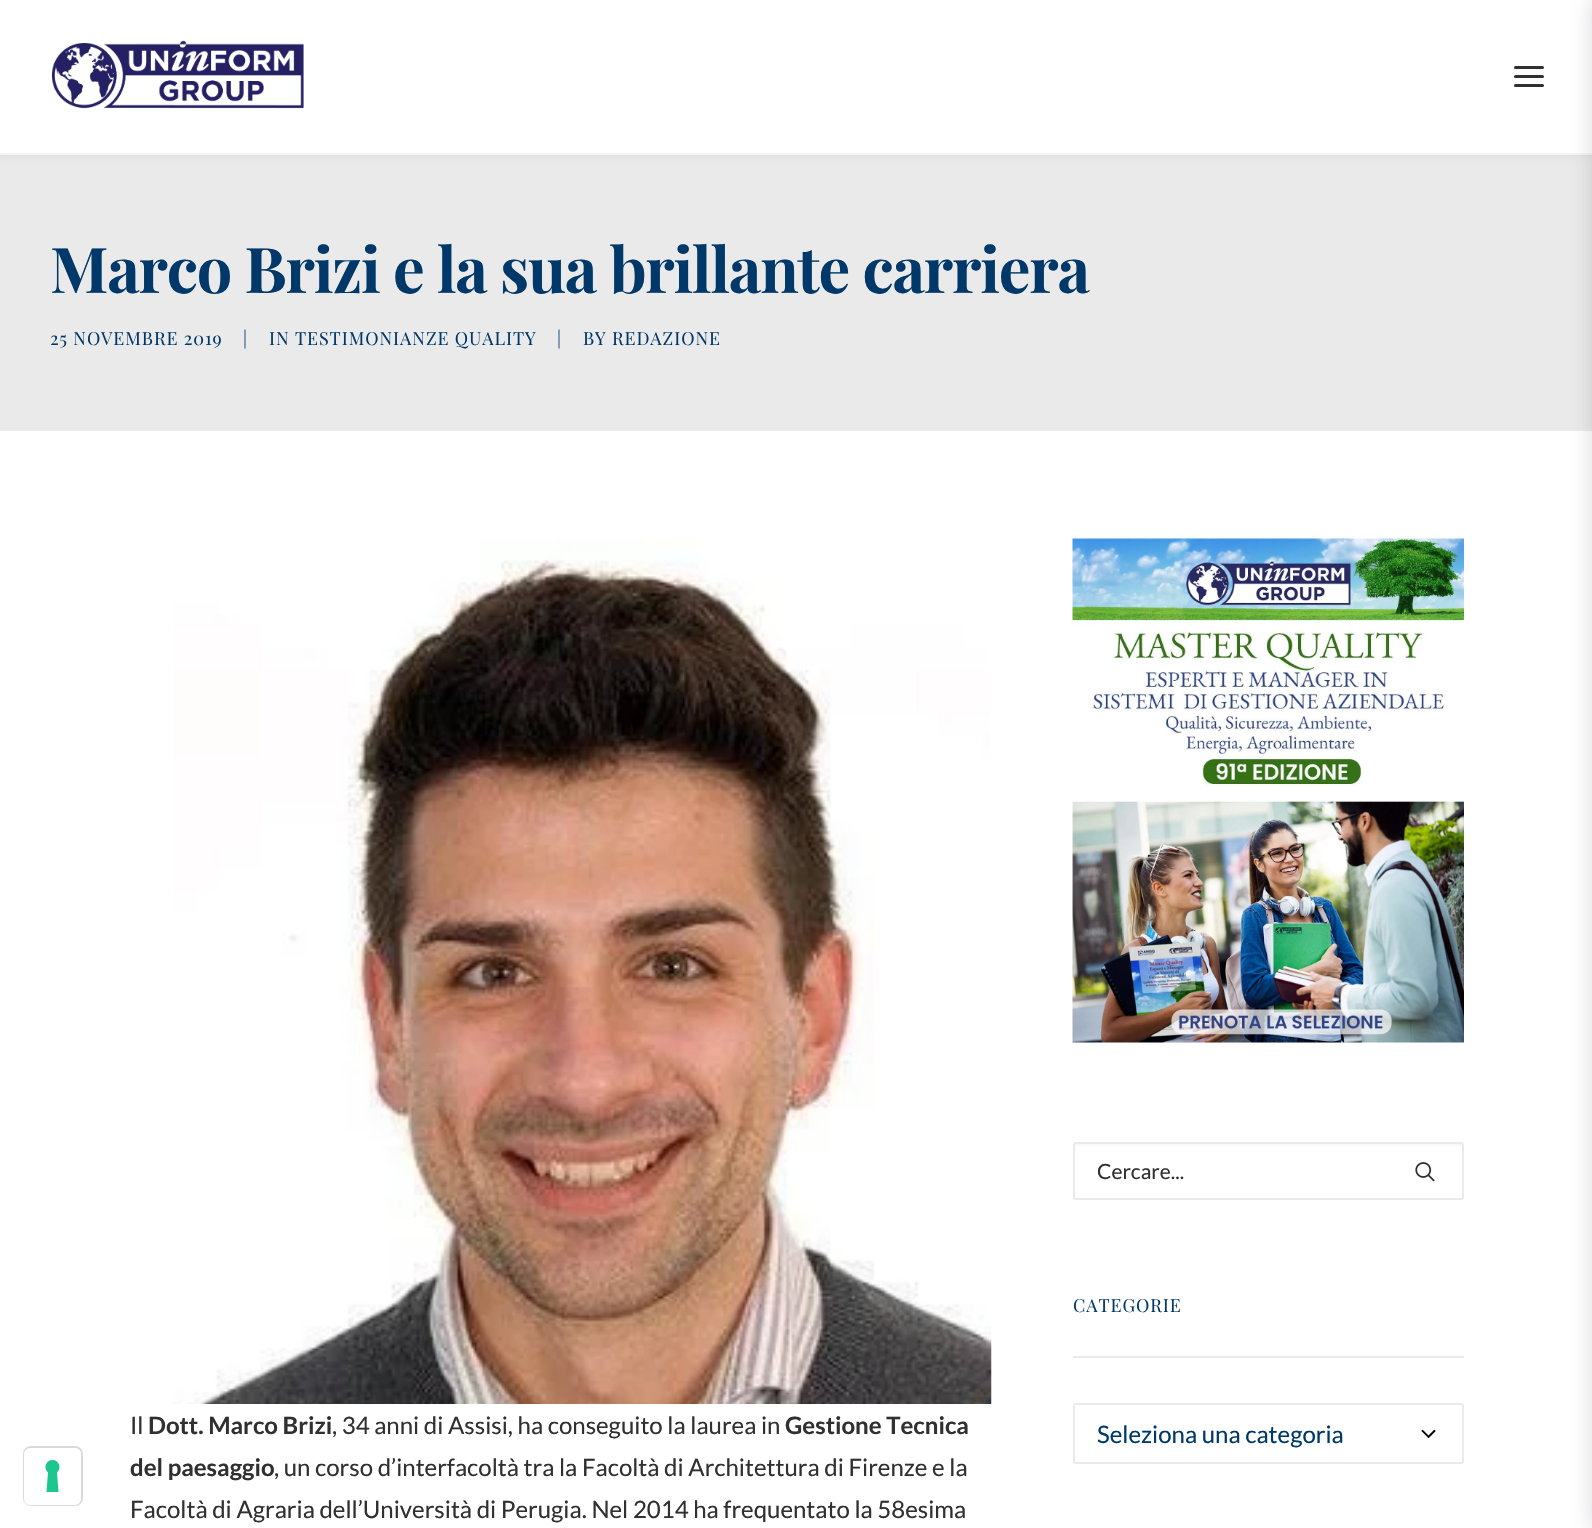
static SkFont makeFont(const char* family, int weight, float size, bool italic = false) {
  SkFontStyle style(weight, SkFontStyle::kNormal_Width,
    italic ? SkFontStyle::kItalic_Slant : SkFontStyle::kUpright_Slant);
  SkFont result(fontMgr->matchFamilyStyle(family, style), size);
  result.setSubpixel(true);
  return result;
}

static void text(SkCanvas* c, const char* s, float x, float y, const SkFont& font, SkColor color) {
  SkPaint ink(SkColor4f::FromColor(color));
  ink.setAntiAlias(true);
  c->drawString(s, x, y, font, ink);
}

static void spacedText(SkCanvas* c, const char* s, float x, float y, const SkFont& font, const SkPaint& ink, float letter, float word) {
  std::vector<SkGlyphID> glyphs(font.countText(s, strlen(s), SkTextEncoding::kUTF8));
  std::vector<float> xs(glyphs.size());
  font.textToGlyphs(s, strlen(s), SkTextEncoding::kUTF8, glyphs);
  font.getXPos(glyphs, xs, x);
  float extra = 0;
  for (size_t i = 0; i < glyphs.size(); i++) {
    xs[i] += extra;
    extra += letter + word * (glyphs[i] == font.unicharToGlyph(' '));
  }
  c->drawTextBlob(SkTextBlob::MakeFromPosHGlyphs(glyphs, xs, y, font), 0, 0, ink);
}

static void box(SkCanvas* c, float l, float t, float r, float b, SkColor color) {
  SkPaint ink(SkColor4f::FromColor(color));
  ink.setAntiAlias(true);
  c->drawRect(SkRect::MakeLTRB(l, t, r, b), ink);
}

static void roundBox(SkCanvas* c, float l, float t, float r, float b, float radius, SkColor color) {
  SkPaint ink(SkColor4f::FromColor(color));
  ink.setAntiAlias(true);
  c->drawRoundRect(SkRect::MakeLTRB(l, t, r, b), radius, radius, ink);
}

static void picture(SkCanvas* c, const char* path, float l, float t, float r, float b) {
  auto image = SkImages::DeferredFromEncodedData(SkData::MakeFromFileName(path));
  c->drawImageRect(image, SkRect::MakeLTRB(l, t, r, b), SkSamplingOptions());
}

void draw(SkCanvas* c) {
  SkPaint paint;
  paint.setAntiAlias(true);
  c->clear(0xffeaeaea);
  paint.setColor(0x1a000000);
  paint.setMaskFilter(SkMaskFilter::MakeBlur(kNormal_SkBlurStyle, 5));
  c->drawRect(SkRect::MakeLTRB(-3, 2, 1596, 153), paint);
  paint.setMaskFilter(nullptr);
  box(c, 0, 0, 1592, 153, 0xffffffff);
  box(c, 0, 153, 1592, 155, 0xfff5f5f5);
  picture(c, "img_01.png", 51, 40, 304, 109);
  roundBox(c, 1514, 75, 1544, 78, 1.5f, 0xff303030);
  roundBox(c, 1514, 66, 1544, 69, 1.5f, 0xff303030);
  roundBox(c, 1514, 84, 1544, 87, 1.5f, 0xff303030);
  SkFont face1 = makeFont("Playfair Display", 700, 63);
  paint.setColor(0xff003869);
  spacedText(c, "Marco Brizi e la sua brillante carriera", 50, 293, face1, paint, -1.25f, 0);
  SkFont face2 = makeFont("Playfair Display", 400, 18);
  spacedText(c, "25 NOVEMBRE 2019", 50, 345, face2, paint, 0.9f, 0);
  spacedText(c, "|", 243, 345, face2, paint, 0.9f, 0);
  spacedText(c, "IN TESTIMONIANZE QUALITY", 269, 345, face2, paint, 0.9f, 0);
  spacedText(c, "|", 557, 345, face2, paint, 0.9f, 0);
  spacedText(c, "BY REDAZIONE", 583, 345, face2, paint, 0.9f, 0);
  box(c, 0, 431, 1592, 1528, 0xffffffff);
  picture(c, "img_02.png", 1072, 538, 1464, 1043);
  paint.setColor(0xfff9f9f9);
  c->drawPath(SkPathBuilder().moveTo(1076, 1146).lineTo(1461, 1146).cubicTo(1462, 1146, 1462, 1147, 1462, 1148).lineTo(1462, 1199).lineTo(1463, 1198).lineTo(1463, 1153).cubicTo(1463, 1150, 1465, 1143, 1462, 1143).lineTo(1076, 1143).cubicTo(1073, 1143, 1074, 1147, 1074, 1148).cubicTo(1074, 1147, 1075, 1146, 1076, 1146).close().detach(), paint);
  paint.setStyle(SkPaint::kStroke_Style);
  paint.setStrokeWidth(2);
  paint.setColor(0xffeaeaea);
  c->drawRoundRect(SkRect::MakeLTRB(1074, 1143, 1463, 1199), 2, 2, paint);
  SkFont face3 = makeFont("Lato", 400, 21);
  text(c, "Cercare...", 1097, 1179, face3, 0xff303030);
  picture(c, "img_03.png", 1415, 1162, 1435, 1182);
  box(c, 1073, 1356, 1464, 1358, 0xffeaeaea);
  paint.setStyle(SkPaint::kFill_Style);
  paint.setColor(0xff003869);
  spacedText(c, "CATEGORIE", 1073, 1312, face2, paint, 0.9f, 0);
  picture(c, "img_04.png", 1421, 1429, 1436, 1438);
  paint.setStyle(SkPaint::kStroke_Style);
  paint.setColor(0xffeaeaea);
  c->drawRoundRect(SkRect::MakeLTRB(1074, 1404, 1463, 1463), 2, 2, paint);
  SkFont face4 = makeFont("Lato", 400, 24);
  text(c, "Seleziona una categoria", 1097, 1443, face4, 0xff003869);
  picture(c, "img_05.png", 173, 539, 992, 1404);
  text(c, "Il", 130, 1434, face4, 0xff303030);
  SkFont face5 = makeFont("Lato", 700, 24);
  text(c, "Dott. Marco Brizi", 148, 1434, face5, 0xff303030);
  text(c, ", 34 anni di Assisi, ha conseguito la laurea in", 332, 1434, face4, 0xff303030);
  text(c, "Gestione Tecnica", 785, 1434, face5, 0xff303030);
  text(c, "del paesaggio", 130, 1476, face5, 0xff303030);
  text(c, ", un corso d’interfacoltà tra la Facoltà di Architettura di Firenze e la", 274, 1476, face4, 0xff303030);
  text(c, "Facoltà di Agraria dell’Università di Perugia. Nel 2014 ha frequentato la 58esima", 130, 1518, face4, 0xff303030);
  paint.setStyle(SkPaint::kFill_Style);
  paint.setColor(0x3345414e);
  paint.setMaskFilter(SkMaskFilter::MakeBlur(kNormal_SkBlurStyle, 11));
  c->drawRect(SkRect::MakeLTRB(1592, -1, 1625, 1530), paint);
  paint.setMaskFilter(nullptr);
  paint.setStyle(SkPaint::kStroke_Style);
  paint.setColor(0xffd9d9d9);
  c->drawRoundRect(SkRect::MakeLTRB(24, 1447, 82, 1505), 7, 7, paint);
  roundBox(c, 24, 1448, 81, 1505, 6, 0xffffffff);
  paint.setStyle(SkPaint::kFill_Style);
  paint.setColor(0xff1cc691);
  c->drawPath(SkPathBuilder(SkPathFillType::kEvenOdd).moveTo(52.5f, 1460).cubicTo(59, 1460, 62, 1468, 57, 1472.5f).lineTo(58.5f, 1492).lineTo(46.5f, 1492).lineTo(48, 1472.5f).cubicTo(43, 1468, 46, 1460, 52.5f, 1460).close().detach(), paint);
}
